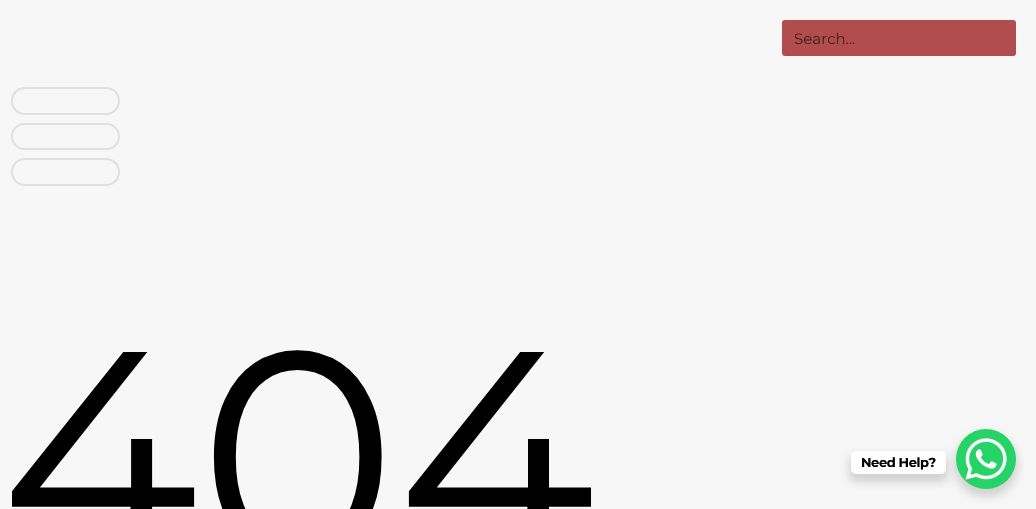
static SkFont makeFont(const char* family, int weight, float size, bool italic = false) {
  SkFontStyle style(weight, SkFontStyle::kNormal_Width,
    italic ? SkFontStyle::kItalic_Slant : SkFontStyle::kUpright_Slant);
  SkFont result(fontMgr->matchFamilyStyle(family, style), size);
  result.setSubpixel(true);
  return result;
}

static void text(SkCanvas* c, const char* s, float x, float y, const SkFont& font, SkColor color) {
  SkPaint ink(SkColor4f::FromColor(color));
  ink.setAntiAlias(true);
  c->drawString(s, x, y, font, ink);
}

static void spacedText(SkCanvas* c, const char* s, float x, float y, const SkFont& font, const SkPaint& ink, float letter, float word) {
  std::vector<SkGlyphID> glyphs(font.countText(s, strlen(s), SkTextEncoding::kUTF8));
  std::vector<float> xs(glyphs.size());
  font.textToGlyphs(s, strlen(s), SkTextEncoding::kUTF8, glyphs);
  font.getXPos(glyphs, xs, x);
  float extra = 0;
  for (size_t i = 0; i < glyphs.size(); i++) {
    xs[i] += extra;
    extra += letter + word * (glyphs[i] == font.unicharToGlyph(' '));
  }
  c->drawTextBlob(SkTextBlob::MakeFromPosHGlyphs(glyphs, xs, y, font), 0, 0, ink);
}

static void roundBox(SkCanvas* c, float l, float t, float r, float b, float radius, SkColor color) {
  SkPaint ink(SkColor4f::FromColor(color));
  ink.setAntiAlias(true);
  c->drawRoundRect(SkRect::MakeLTRB(l, t, r, b), radius, radius, ink);
}

static void picture(SkCanvas* c, const char* path, float l, float t, float r, float b) {
  auto image = SkImages::DeferredFromEncodedData(SkData::MakeFromFileName(path));
  c->drawImageRect(image, SkRect::MakeLTRB(l, t, r, b), SkSamplingOptions());
}

void draw(SkCanvas* c) {
  SkPaint paint;
  paint.setAntiAlias(true);
  c->clear(0xfff7f7f7);
  roundBox(c, 782, 20, 1016, 56, 3, 0xffb24d4d);
  SkFont face1 = makeFont("Montserrat", 400, 15);
  text(c, "Search...", 794, 44, face1, 0xff471f1f);
  paint.setStyle(SkPaint::kStroke_Style);
  paint.setStrokeWidth(2);
  paint.setColor(0xffe0e0e0);
  c->drawRoundRect(SkRect::MakeLTRB(12, 88, 119, 114), 13, 13, paint);
  c->drawRoundRect(SkRect::MakeLTRB(12, 124, 119, 149), 12.5f, 12.5f, paint);
  c->drawRoundRect(SkRect::MakeLTRB(12, 159, 119, 185), 13, 13, paint);
  SkFont face2 = makeFont("Montserrat", 400, 300);
  text(c, "404", 0, 562, face2, 0xff000000);
  paint.setStyle(SkPaint::kFill_Style);
  paint.setColor(0x26000000);
  paint.setMaskFilter(SkMaskFilter::MakeBlur(kNormal_SkBlurStyle, 4));
  c->drawRoundRect(SkRect::MakeLTRB(954, 433, 1018, 497), 32, 32, paint);
  paint.setMaskFilter(nullptr);
  paint.setColor(0xff25d366);
  c->drawCircle(986, 459, 30, paint);
  paint.setColor(0x26000000);
  paint.setMaskFilter(SkMaskFilter::MakeBlur(kNormal_SkBlurStyle, 4));
  c->drawRoundRect(SkRect::MakeLTRB(849, 455, 948, 482), 7, 7, paint);
  paint.setMaskFilter(nullptr);
  roundBox(c, 851, 451, 946, 474, 5, 0xffffffff);
  SkFont face3 = makeFont("Montserrat", 700, 13);
  paint.setColor(0xff000000);
  spacedText(c, "Need Help?", 861, 467, face3, paint, -0.4f, 0);
  picture(c, "img_01.png", 965, 438, 1007, 480);
}
